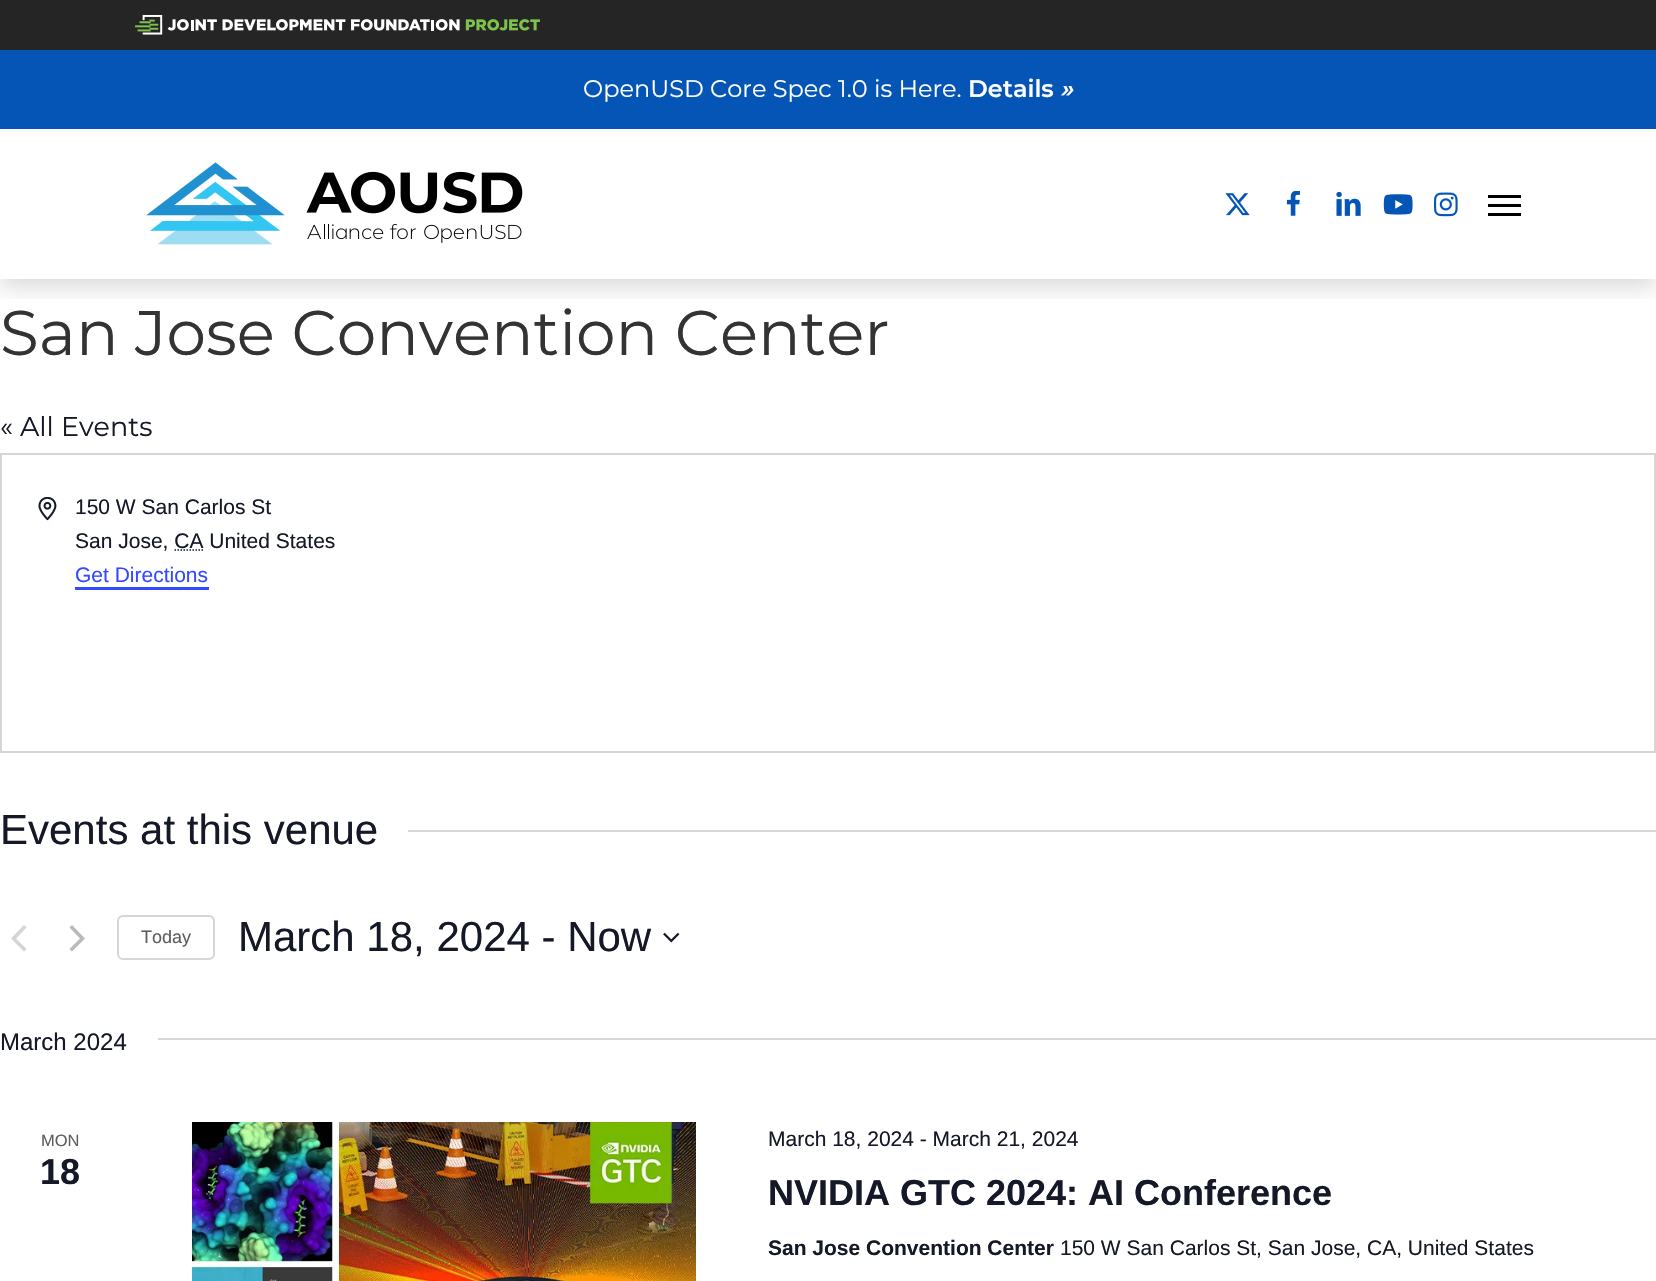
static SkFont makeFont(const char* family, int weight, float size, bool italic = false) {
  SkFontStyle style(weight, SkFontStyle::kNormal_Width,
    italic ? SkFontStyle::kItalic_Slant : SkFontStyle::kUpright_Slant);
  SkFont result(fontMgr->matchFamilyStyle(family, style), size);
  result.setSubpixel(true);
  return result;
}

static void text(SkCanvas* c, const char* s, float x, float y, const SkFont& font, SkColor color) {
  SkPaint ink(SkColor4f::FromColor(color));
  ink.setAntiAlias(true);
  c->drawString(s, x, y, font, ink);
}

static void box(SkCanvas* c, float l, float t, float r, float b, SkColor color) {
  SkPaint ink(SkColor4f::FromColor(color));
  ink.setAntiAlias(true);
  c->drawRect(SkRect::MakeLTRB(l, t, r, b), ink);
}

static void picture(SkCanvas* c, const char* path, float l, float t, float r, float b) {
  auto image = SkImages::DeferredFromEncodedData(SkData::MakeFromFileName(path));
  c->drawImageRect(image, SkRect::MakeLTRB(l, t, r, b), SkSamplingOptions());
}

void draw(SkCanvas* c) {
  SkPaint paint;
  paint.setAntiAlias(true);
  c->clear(0xffffffff);
  c->save();
  c->clipRect(SkRect::MakeLTRB(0, 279, 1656, 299));
  paint.setColor(0x26000000);
  paint.setMaskFilter(SkMaskFilter::MakeBlur(kNormal_SkBlurStyle, 11));
  c->drawRect(SkRect::MakeLTRB(0, 56, 1656, 287), paint);
  paint.setMaskFilter(nullptr);
  c->restore();
  box(c, 0, 0, 1656, 50, 0xff252525);
  picture(c, "img_01.png", 135, 15, 540, 35);
  box(c, 0, 50, 1656, 129, 0xff0555b6);
  SkFont face1 = makeFont("Montserrat", 400, 24);
  text(c, "OpenUSD Core Spec 1.0 is Here.", 583, 97, face1, 0xffffffff);
  SkFont face2 = makeFont("Montserrat", 600, 24);
  text(c, "Details", 968, 97, face2, 0xffffffff);
  SkFont face3 = makeFont("Montserrat", 600, 24, true);
  text(c, "»", 1060, 97, face3, 0xffffffff);
  picture(c, "img_02.png", 146, 162, 523, 245);
  picture(c, "img_03.png", 1225, 193, 1250, 216);
  picture(c, "img_04.png", 1286, 191, 1300, 216);
  picture(c, "img_05.png", 1336, 191, 1361, 216);
  picture(c, "img_06.png", 1383, 194, 1413, 215);
  picture(c, "img_07.png", 1434, 192, 1458, 217);
  box(c, 1488, 195, 1521, 198, 0xff000000);
  box(c, 1488, 213, 1521, 216, 0xff000000);
  box(c, 1488, 204, 1521, 207, 0xff000000);
  SkFont face4 = makeFont("Montserrat", 400, 63);
  text(c, "San Jose Convention Center", 0, 355, face4, 0xff333333);
  SkFont face5 = makeFont("Montserrat", 400, 27);
  text(c, "« All Events", 0, 436, face5, 0xff141827);
  paint.setStyle(SkPaint::kStroke_Style);
  paint.setStrokeWidth(2);
  paint.setColor(0xffd5d5d5);
  c->drawRect(SkRect::MakeLTRB(1, 454, 1655, 752), paint);
  picture(c, "img_08.png", 38, 497, 57, 521);
  SkFont face6 = makeFont("Liberation Sans", 400, 21);
  text(c, "150 W San Carlos St", 75, 514, face6, 0xff141827);
  text(c, "San Jose, CA United States", 75, 548, face6, 0xff141827);
  paint.setStrokeWidth(1.5f);
  paint.setColor(0xff141827);
  paint.setPathEffect(SkDashPathEffect::Make({{1.5f, 1.5f}}, 0));
  c->drawPath(SkPathBuilder().moveTo(174.5f, 550).lineTo(204, 550).detach(), paint);
  paint.setPathEffect(nullptr);
  text(c, "Get Directions", 75, 582, face6, 0xff334aff);
  box(c, 75, 587, 209, 590, 0xff334aff);
  SkFont face7 = makeFont("Liberation Sans", 400, 42);
  text(c, "Events at this venue", 0, 844, face7, 0xff141827);
  box(c, 408, 830, 1656, 832, 0xffd5d5d5);
  paint.setStyle(SkPaint::kFill_Style);
  paint.setColor(0xffd5d5d5);
  c->drawPath(SkPathBuilder().moveTo(26.5f, 949).lineTo(24, 951.5f).lineTo(11, 938.5f).lineTo(24, 925).lineTo(26.5f, 927.5f).lineTo(16, 938.5f).close().detach(), paint);
  paint.setColor(0xffbababa);
  c->drawPath(SkPathBuilder().moveTo(69.5f, 927.5f).lineTo(72, 925).lineTo(85, 938.5f).lineTo(72, 951.5f).lineTo(69.5f, 949).lineTo(80, 938.5f).close().detach(), paint);
  paint.setStyle(SkPaint::kStroke_Style);
  paint.setStrokeWidth(2);
  paint.setColor(0xffd5d5d5);
  c->drawRoundRect(SkRect::MakeLTRB(118, 916, 214, 959), 5, 5, paint);
  SkFont face8 = makeFont("Liberation Sans", 400, 18);
  text(c, "Today", 141, 943, face8, 0xff5d5d5d);
  text(c, "March 18, 2024 - Now", 238, 951, face7, 0xff141827);
  picture(c, "img_09.png", 663, 932, 680, 943);
  SkFont face9 = makeFont("Liberation Sans", 400, 24);
  text(c, "March 2024", 0, 1050, face9, 0xff141827);
  box(c, 158, 1038, 1656, 1040, 0xffd5d5d5);
  SkFont face10 = makeFont("Liberation Sans", 400, 16.5f);
  text(c, "MON", 41, 1146, face10, 0xff5d5d5d);
  SkFont face11 = makeFont("Liberation Sans", 700, 36);
  text(c, "18", 40, 1184, face11, 0xff141827);
  picture(c, "img_10.png", 192, 1122, 696, 1281);
  text(c, "March 18, 2024 - March 21, 2024", 768, 1146, face6, 0xff141827);
  text(c, "NVIDIA GTC 2024: AI Conference", 768, 1205, face11, 0xff141827);
  SkFont face12 = makeFont("Liberation Sans", 700, 21);
  text(c, "San Jose Convention Center", 768, 1255, face12, 0xff141827);
  text(c, "150 W San Carlos St, San Jose, CA, United States", 1060, 1255, face6, 0xff141827);
}
